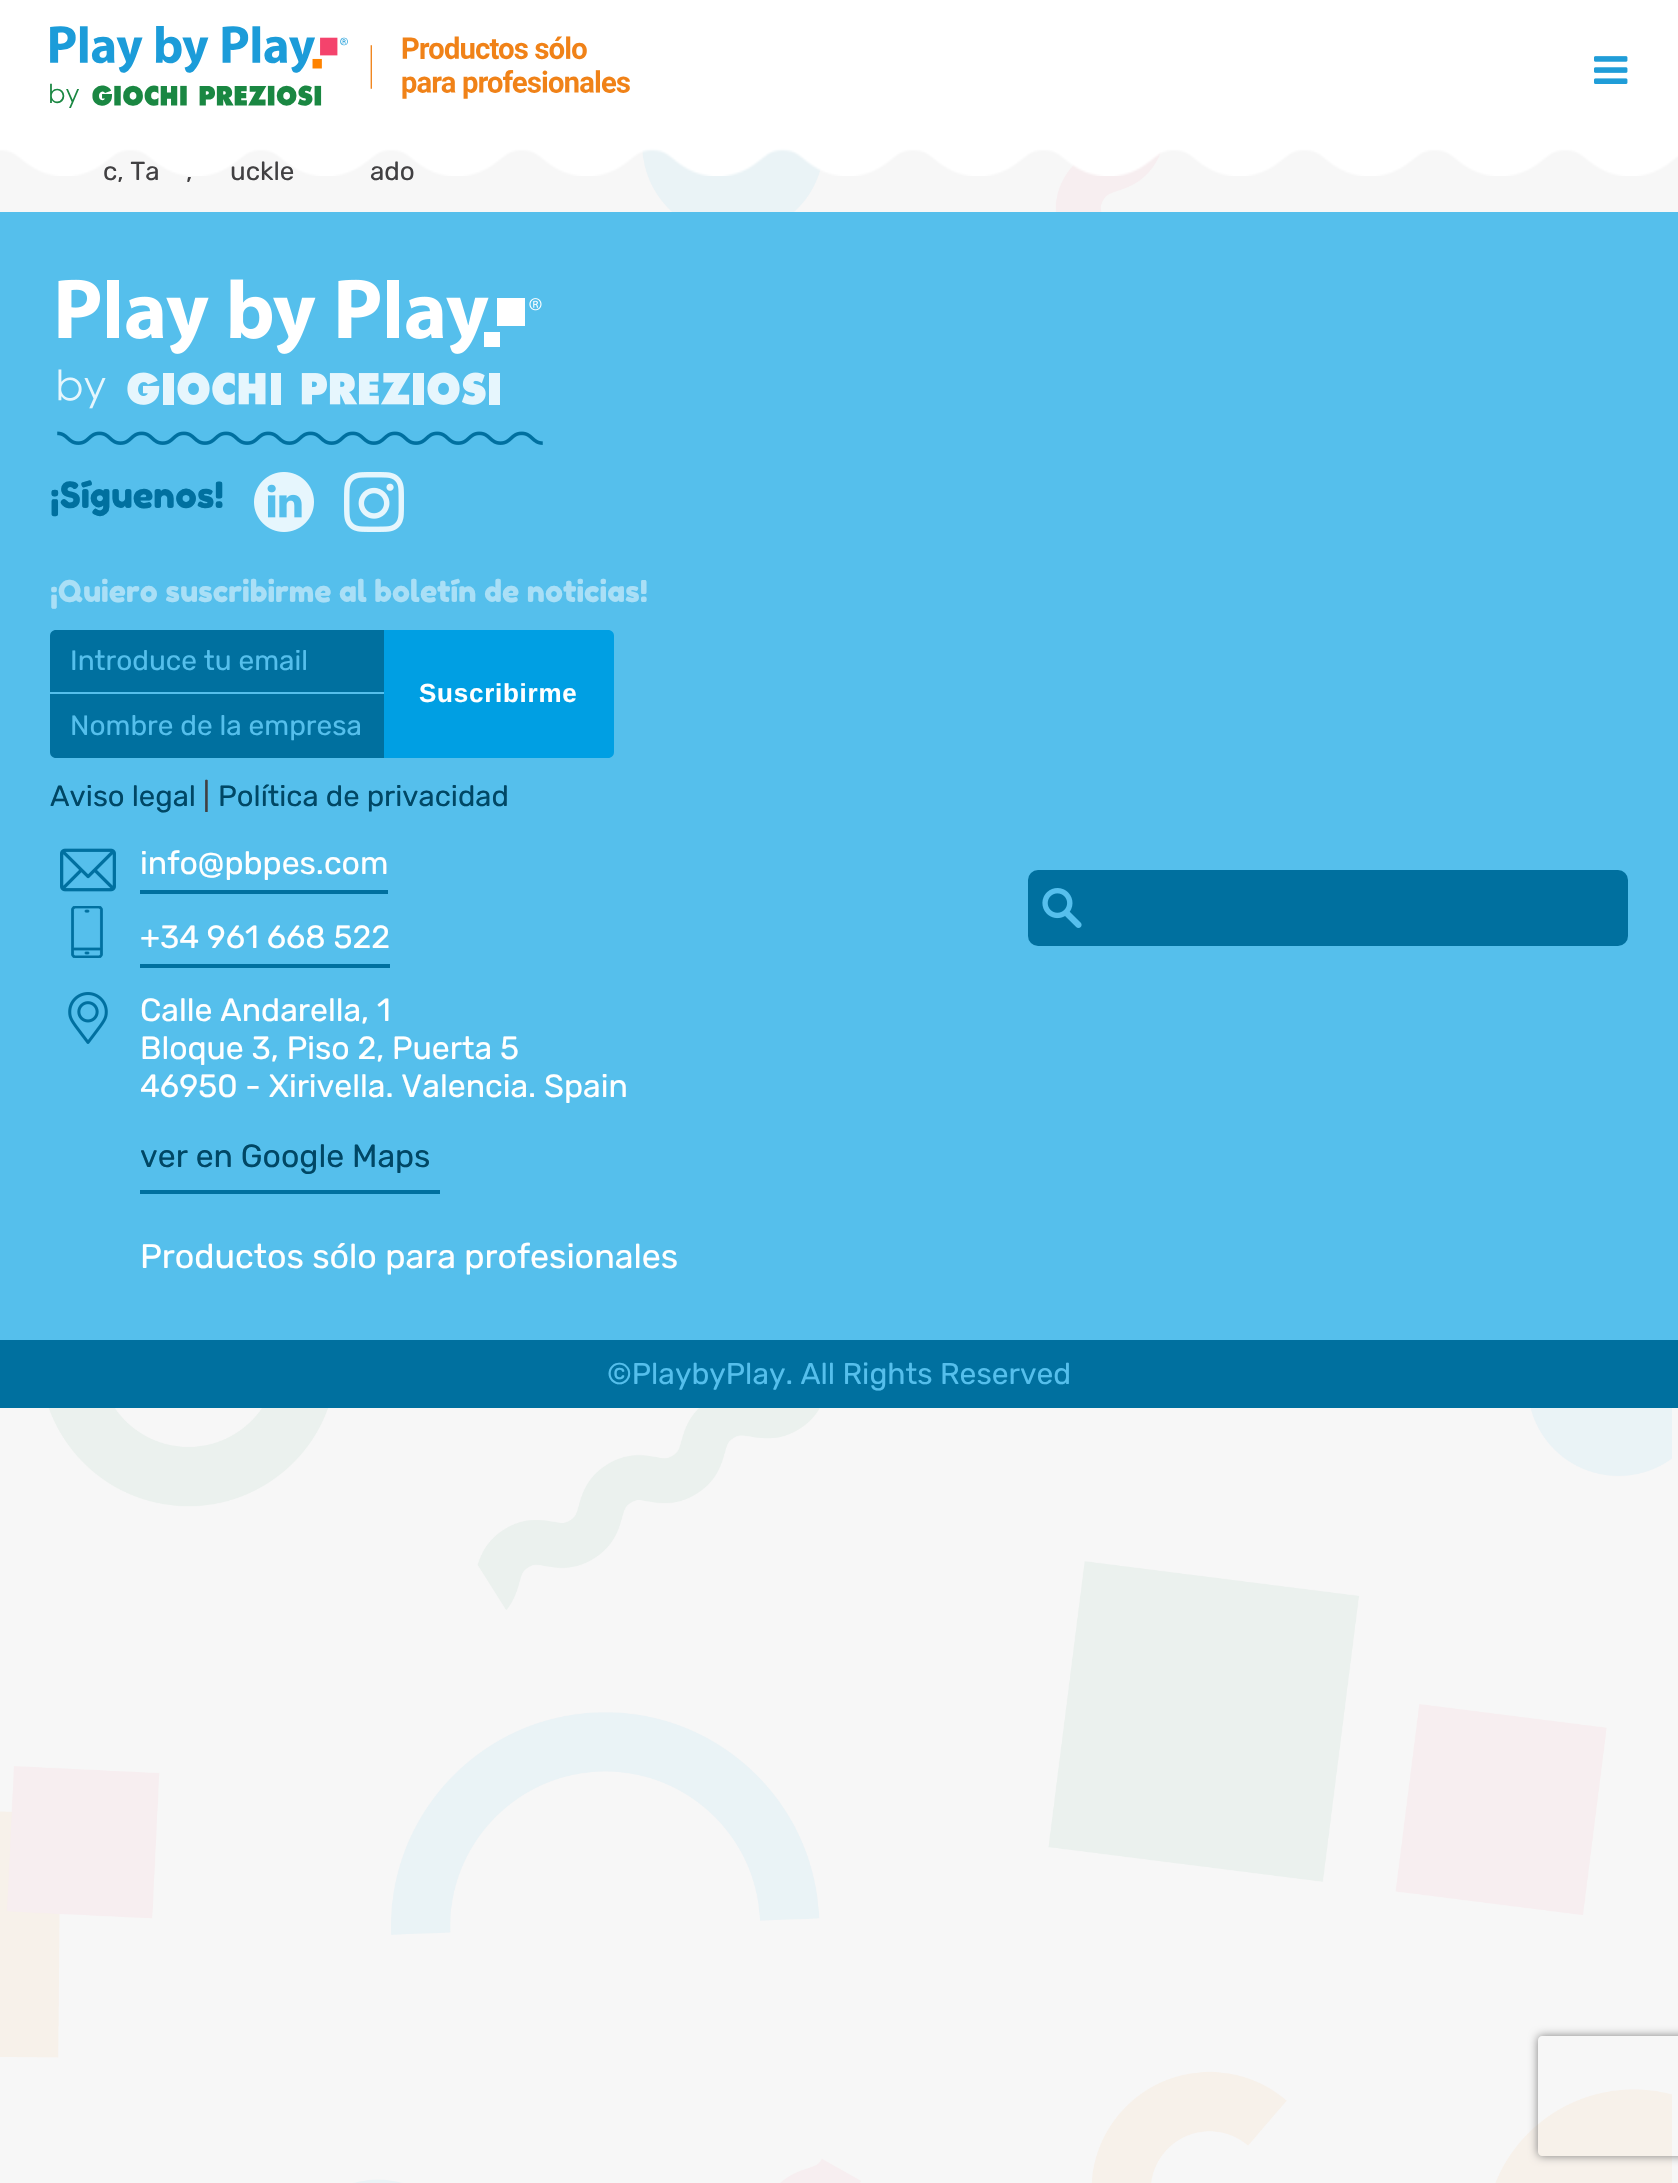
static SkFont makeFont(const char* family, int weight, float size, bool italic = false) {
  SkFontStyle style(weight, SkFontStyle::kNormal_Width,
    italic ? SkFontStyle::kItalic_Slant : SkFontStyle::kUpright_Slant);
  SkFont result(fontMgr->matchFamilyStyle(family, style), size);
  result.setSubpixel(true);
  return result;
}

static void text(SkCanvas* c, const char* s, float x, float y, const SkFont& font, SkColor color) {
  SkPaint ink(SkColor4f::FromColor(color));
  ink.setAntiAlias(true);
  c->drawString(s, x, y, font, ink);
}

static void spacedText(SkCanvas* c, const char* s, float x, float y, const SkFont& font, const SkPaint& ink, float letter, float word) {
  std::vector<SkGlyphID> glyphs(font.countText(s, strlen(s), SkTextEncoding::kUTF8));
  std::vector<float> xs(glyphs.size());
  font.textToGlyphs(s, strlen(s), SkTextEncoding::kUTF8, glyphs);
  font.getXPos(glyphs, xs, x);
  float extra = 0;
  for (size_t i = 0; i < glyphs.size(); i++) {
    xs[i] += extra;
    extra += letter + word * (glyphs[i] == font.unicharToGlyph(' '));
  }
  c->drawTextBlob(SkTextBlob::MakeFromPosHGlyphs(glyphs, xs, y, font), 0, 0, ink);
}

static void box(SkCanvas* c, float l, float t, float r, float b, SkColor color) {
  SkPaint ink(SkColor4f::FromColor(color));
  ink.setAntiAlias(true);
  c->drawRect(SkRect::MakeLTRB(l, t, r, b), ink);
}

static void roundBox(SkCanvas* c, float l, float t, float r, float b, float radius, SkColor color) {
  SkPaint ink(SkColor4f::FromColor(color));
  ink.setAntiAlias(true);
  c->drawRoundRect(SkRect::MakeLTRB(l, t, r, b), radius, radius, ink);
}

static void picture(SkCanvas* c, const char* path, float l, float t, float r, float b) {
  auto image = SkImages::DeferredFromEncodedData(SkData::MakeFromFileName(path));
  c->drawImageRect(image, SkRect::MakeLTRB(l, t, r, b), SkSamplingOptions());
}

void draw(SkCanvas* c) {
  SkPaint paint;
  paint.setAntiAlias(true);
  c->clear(0xffffffff);
  picture(c, "img_01.png", 0, 148, 1678, 2183);
  picture(c, "img_02.png", 50, 26, 630, 108);
  picture(c, "img_03.png", 1594, 56, 1628, 84);
  SkFont face1 = makeFont("Rubik", 400, 26);
  text(c, "c, Ta", 103, 180, face1, 0xff414042);
  text(c, "uckle", 230, 180, face1, 0xff414042);
  text(c, "ado", 370, 180, face1, 0xff414042);
  picture(c, "img_04.png", 0, 130, 1678, 176);
  text(c, ",", 186, 180, face1, 0xff414042);
  box(c, 0, 212, 1678, 1340, 0xff55bfec);
  picture(c, "img_05.png", 58, 279, 542, 409);
  picture(c, "img_06.png", 57, 431, 543, 445);
  SkFont face2 = makeFont("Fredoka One", 400, 36);
  text(c, "¡Síguenos!", 50, 508, face2, 0xff00709f);
  picture(c, "img_07.png", 254, 472, 314, 532);
  picture(c, "img_08.png", 344, 472, 404, 532);
  SkFont face3 = makeFont("Fredoka One", 400, 30);
  text(c, "¡Quiero suscribirme al boletín de noticias!", 50, 602, face3, 0xffaadff6);
  paint.setColor(0xff00709f);
  c->drawPath(SkPathBuilder().moveTo(56, 630).lineTo(468, 630).cubicTo(471.5f, 630, 474, 632.5f, 474, 636).lineTo(474, 694).lineTo(50, 694).lineTo(50, 636).cubicTo(50, 632.5f, 52.5f, 630, 56, 630).close().detach(), paint);
  box(c, 50, 692, 384, 694, 0xff55bfec);
  SkFont face4 = makeFont("Rubik", 400, 28);
  text(c, "Introduce tu email", 70, 670, face4, 0xff55bfec);
  c->drawPath(SkPathBuilder().moveTo(50, 694).lineTo(474, 694).lineTo(474, 752).cubicTo(474, 755.5f, 471.5f, 758, 468, 758).lineTo(56, 758).cubicTo(52.5f, 758, 50, 755.5f, 50, 752).close().detach(), paint);
  paint.setColor(0xff009fe3);
  c->drawPath(SkPathBuilder().moveTo(384, 630).lineTo(608, 630).cubicTo(611.5f, 630, 614, 632.5f, 614, 636).lineTo(614, 752).cubicTo(614, 755.5f, 611.5f, 758, 608, 758).lineTo(384, 758).close().detach(), paint);
  SkFont face5 = makeFont("Liberation Sans", 700, 26);
  paint.setColor(0xffffffff);
  spacedText(c, "Suscribirme", 419, 702, face5, paint, 0.75f, 0);
  text(c, "Nombre de la empresa", 70, 735, face4, 0xff55bfec);
  SkFont face6 = makeFont("Rubik", 400, 29.25f);
  text(c, "Aviso legal", 50, 806, face6, 0xff004765);
  text(c, "|", 203, 806, face6, 0xff414042);
  text(c, "Política de privacidad", 218, 806, face6, 0xff004765);
  picture(c, "img_09.png", 60, 848, 116, 892);
  SkFont face7 = makeFont("Rubik", 400, 32);
  text(c, "info@pbpes.com", 140, 874, face7, 0xffffffff);
  box(c, 140, 890, 388, 894, 0xff00709f);
  picture(c, "img_10.png", 71, 906, 103, 958);
  text(c, "+34 961 668 522", 140, 948, face7, 0xffffffff);
  box(c, 140, 964, 390, 968, 0xff00709f);
  picture(c, "img_11.png", 68, 992, 108, 1044);
  text(c, "Calle Andarella, 1", 140, 1021, face7, 0xffffffff);
  text(c, "Bloque 3, Piso 2, Puerta 5", 140, 1059, face7, 0xffffffff);
  text(c, "46950 - Xirivella. Valencia. Spain", 140, 1097, face7, 0xffffffff);
  text(c, "ver en Google Maps", 140, 1167, face7, 0xff004765);
  box(c, 140, 1190, 440, 1194, 0xff00709f);
  SkFont face8 = makeFont("Rubik", 400, 34);
  text(c, "Productos sólo para profesionales", 140, 1268, face8, 0xffffffff);
  roundBox(c, 1028, 870, 1628, 946, 10, 0xff00709f);
  picture(c, "img_12.png", 1042, 888, 1082, 928);
  box(c, 0, 1340, 1678, 1408, 0xff00709f);
  SkFont face9 = makeFont("Rubik", 400, 30);
  text(c, "©PlaybyPlay. All Rights Reserved", 607, 1384, face9, 0xff55bfec);
  c->save();
  c->clipPath(SkPathBuilder(SkPathFillType::kEvenOdd).moveTo(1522, 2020).lineTo(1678, 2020).lineTo(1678, 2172).lineTo(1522, 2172).close().moveTo(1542, 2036).lineTo(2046, 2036).cubicTo(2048, 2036, 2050, 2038, 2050, 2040).lineTo(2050, 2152).cubicTo(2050, 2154, 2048, 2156, 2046, 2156).lineTo(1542, 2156).cubicTo(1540, 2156, 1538, 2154, 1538, 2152).lineTo(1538, 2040).cubicTo(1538, 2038, 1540, 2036, 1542, 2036).close().detach(), true);
  paint.setColor(0xff808080);
  paint.setMaskFilter(SkMaskFilter::MakeBlur(kNormal_SkBlurStyle, 5));
  c->drawRoundRect(SkRect::MakeLTRB(1538, 2036, 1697, 2156), 4, 4, paint);
  paint.setMaskFilter(nullptr);
  c->restore();
}
